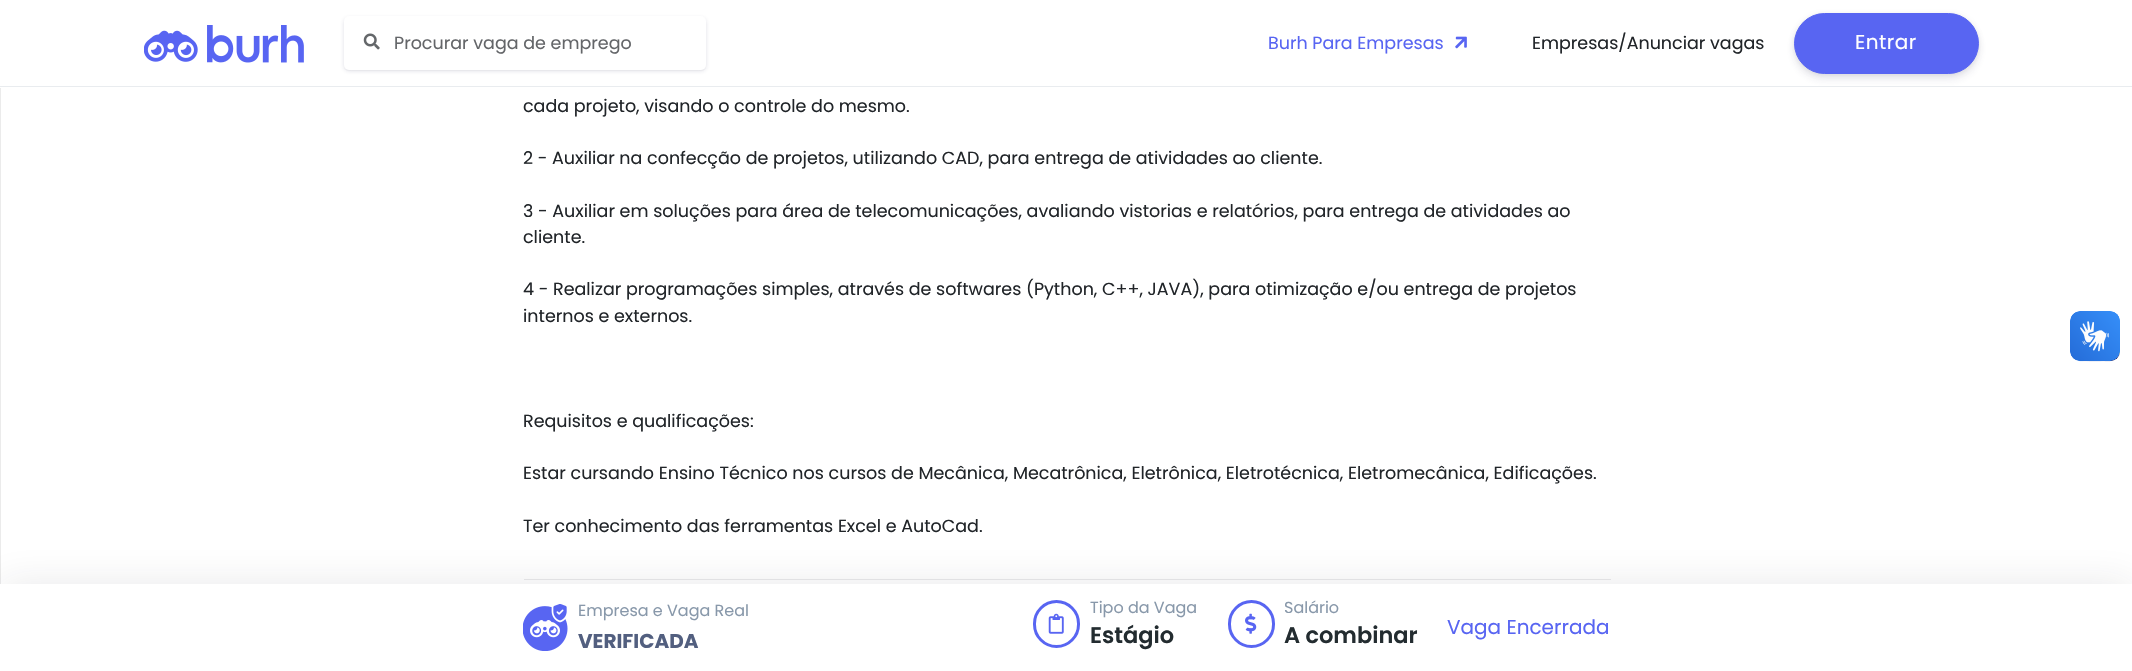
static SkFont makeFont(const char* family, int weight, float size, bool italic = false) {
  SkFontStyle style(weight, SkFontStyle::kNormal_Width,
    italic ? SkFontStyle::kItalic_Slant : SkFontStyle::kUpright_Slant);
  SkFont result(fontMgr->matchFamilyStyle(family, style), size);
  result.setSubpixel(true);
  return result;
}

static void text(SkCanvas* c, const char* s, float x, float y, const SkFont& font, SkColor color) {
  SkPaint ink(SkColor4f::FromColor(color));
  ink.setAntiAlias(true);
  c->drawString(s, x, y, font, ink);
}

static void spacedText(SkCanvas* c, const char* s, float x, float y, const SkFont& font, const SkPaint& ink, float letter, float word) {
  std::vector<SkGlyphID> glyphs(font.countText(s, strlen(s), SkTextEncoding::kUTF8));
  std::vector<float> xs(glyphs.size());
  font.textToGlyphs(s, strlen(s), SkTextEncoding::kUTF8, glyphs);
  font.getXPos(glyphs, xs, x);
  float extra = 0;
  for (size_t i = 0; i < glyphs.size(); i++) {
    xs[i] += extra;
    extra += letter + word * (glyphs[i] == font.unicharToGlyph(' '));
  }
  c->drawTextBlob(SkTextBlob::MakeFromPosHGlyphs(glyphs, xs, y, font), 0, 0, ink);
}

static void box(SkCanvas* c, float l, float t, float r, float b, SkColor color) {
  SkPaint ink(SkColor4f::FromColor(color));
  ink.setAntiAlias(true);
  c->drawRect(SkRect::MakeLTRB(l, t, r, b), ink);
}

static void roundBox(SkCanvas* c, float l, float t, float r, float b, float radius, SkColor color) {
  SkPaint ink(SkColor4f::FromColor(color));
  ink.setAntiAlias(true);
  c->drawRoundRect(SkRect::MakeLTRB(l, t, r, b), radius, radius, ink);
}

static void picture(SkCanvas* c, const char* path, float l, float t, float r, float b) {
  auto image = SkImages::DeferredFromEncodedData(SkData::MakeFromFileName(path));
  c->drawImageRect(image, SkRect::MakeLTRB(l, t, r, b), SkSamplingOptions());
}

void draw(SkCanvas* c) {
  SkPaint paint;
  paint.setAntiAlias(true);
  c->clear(0xffffffff);
  box(c, 0, 86, 2132, 87, 0xffe9ecef);
  picture(c, "img_01.png", 144, 25, 304, 63);
  paint.setColor(0xfffafafa);
  c->drawPath(SkPathBuilder().moveTo(344, 67).cubicTo(344, 69, 346, 71, 349, 71).lineTo(701, 71).cubicTo(704, 71, 706, 69, 706, 67).cubicTo(705, 69, 703, 70, 701, 70).lineTo(349, 70).cubicTo(347, 70, 345, 69, 344, 67).close().detach(), paint);
  paint.setColor(0x2632325d);
  paint.setMaskFilter(SkMaskFilter::MakeBlur(kNormal_SkBlurStyle, 2));
  c->drawRoundRect(SkRect::MakeLTRB(344, 18, 706, 71), 5, 5, paint);
  paint.setMaskFilter(nullptr);
  roundBox(c, 344, 16, 706, 70, 5, 0xffffffff);
  picture(c, "img_02.png", 363, 33, 380, 50);
  SkFont face1 = makeFont("Poppins", 400, 17.5f);
  text(c, "Procurar vaga de emprego", 394, 49, face1, 0xff646669);
  text(c, "Burh Para Empresas", 1268, 49, face1, 0xff5865f2);
  picture(c, "img_03.png", 1455, 36, 1467, 49);
  text(c, "Empresas/Anunciar vagas", 1532, 49, face1, 0xff212529);
  paint.setColor(0x14000000);
  paint.setMaskFilter(SkMaskFilter::MakeBlur(kNormal_SkBlurStyle, 2));
  c->drawRoundRect(SkRect::MakeLTRB(1794, 14, 1979, 75), 30.5f, 30.5f, paint);
  paint.setMaskFilter(nullptr);
  paint.setColor(0x1c32325d);
  paint.setMaskFilter(SkMaskFilter::MakeBlur(kNormal_SkBlurStyle, 4));
  c->drawRoundRect(SkRect::MakeLTRB(1794, 18, 1979, 79), 30.5f, 30.5f, paint);
  paint.setMaskFilter(nullptr);
  paint.setColor(0xff5865f2);
  c->drawRoundRect(SkRect::MakeLTRB(1794.5f, 13.5f, 1978.5f, 73.5f), 30, 30, paint);
  paint.setStyle(SkPaint::kStroke_Style);
  paint.setStrokeWidth(1);
  c->drawRoundRect(SkRect::MakeLTRB(1794.5f, 13.5f, 1978.5f, 73.5f), 30, 30, paint);
  SkFont face2 = makeFont("Poppins", 400, 20);
  paint.setStyle(SkPaint::kFill_Style);
  paint.setColor(0xffffffff);
  spacedText(c, "Entrar", 1855, 49, face2, paint, 0.5f, 0);
  box(c, 0, 88, 1, 584, 0xffebebeb);
  text(c, "cada projeto, visando o controle do mesmo.", 523, 112, face1, 0xff212529);
  text(c, "2 - Auxiliar na confecção de projetos, utilizando CAD, para entrega de atividades ao cliente.", 523, 164, face1, 0xff212529);
  text(c, "3 - Auxiliar em soluções para área de telecomunicações, avaliando vistorias e relatórios, para entrega de atividades ao", 523, 217, face1, 0xff212529);
  text(c, "cliente.", 523, 243, face1, 0xff212529);
  text(c, "4 - Realizar programações simples, através de softwares (Python, C++, JAVA), para otimização e/ou entrega de projetos", 523, 295, face1, 0xff212529);
  text(c, "internos e externos.", 523, 322, face1, 0xff212529);
  text(c, "Requisitos e qualificações:", 523, 427, face1, 0xff212529);
  text(c, "Estar cursando Ensino Técnico nos cursos de Mecânica, Mecatrônica, Eletrônica, Eletrotécnica, Eletromecânica, Edificações.", 523, 479, face1, 0xff212529);
  text(c, "Ter conhecimento das ferramentas Excel e AutoCad.", 523, 532, face1, 0xff212529);
  box(c, 524, 579, 1611, 580, 0xffe9e9ea);
  paint.setColor(0x1a232c30);
  paint.setMaskFilter(SkMaskFilter::MakeBlur(kNormal_SkBlurStyle, 20));
  c->drawRect(SkRect::MakeLTRB(0, 584, 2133, 671), paint);
  paint.setMaskFilter(nullptr);
  box(c, 0, 584, 2132, 671, 0xffffffff);
  picture(c, "img_04.png", 523, 604, 568, 651);
  SkFont face3 = makeFont("Poppins", 400, 16);
  text(c, "Empresa e Vaga Real", 578, 616, face3, 0xff8898aa);
  SkFont face4 = makeFont("Poppins", 700, 20);
  text(c, "VERIFICADA", 578, 648, face4, 0xff525f7f);
  paint.setStyle(SkPaint::kStroke_Style);
  paint.setStrokeWidth(3);
  paint.setColor(0xff5865f2);
  c->drawRoundRect(SkRect::MakeLTRB(1034.5f, 601.5f, 1078.5f, 646.5f), 22, 22, paint);
  picture(c, "img_05.png", 1048, 613, 1064, 634);
  text(c, "Tipo da Vaga", 1090, 613, face3, 0xff8898aa);
  SkFont face5 = makeFont("Poppins", 600, 22.5f);
  text(c, "Estágio", 1090, 643, face5, 0xff232c30);
  c->drawRoundRect(SkRect::MakeLTRB(1229.5f, 601.5f, 1273.5f, 646.5f), 22, 22, paint);
  picture(c, "img_06.png", 1245, 613, 1257, 634);
  text(c, "Salário", 1284, 613, face3, 0xff8898aa);
  text(c, "A combinar", 1284, 643, face5, 0xff232c30);
  text(c, "Vaga Encerrada", 1447, 634, face2, 0xff5865f2);
  picture(c, "img_07.png", 2070, 311, 2120, 362);
  picture(c, "img_08.png", 2070, 311, 2120, 361);
}
